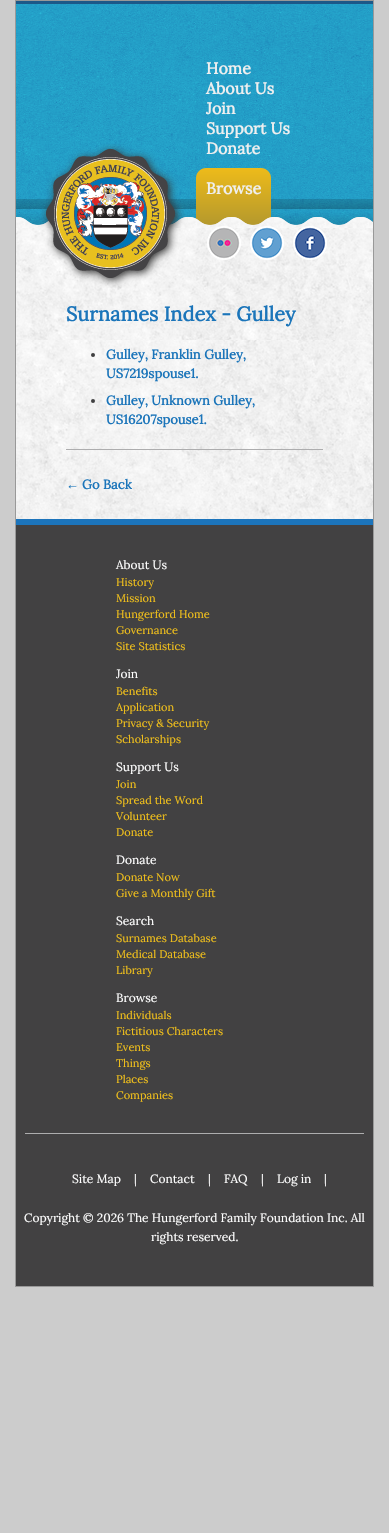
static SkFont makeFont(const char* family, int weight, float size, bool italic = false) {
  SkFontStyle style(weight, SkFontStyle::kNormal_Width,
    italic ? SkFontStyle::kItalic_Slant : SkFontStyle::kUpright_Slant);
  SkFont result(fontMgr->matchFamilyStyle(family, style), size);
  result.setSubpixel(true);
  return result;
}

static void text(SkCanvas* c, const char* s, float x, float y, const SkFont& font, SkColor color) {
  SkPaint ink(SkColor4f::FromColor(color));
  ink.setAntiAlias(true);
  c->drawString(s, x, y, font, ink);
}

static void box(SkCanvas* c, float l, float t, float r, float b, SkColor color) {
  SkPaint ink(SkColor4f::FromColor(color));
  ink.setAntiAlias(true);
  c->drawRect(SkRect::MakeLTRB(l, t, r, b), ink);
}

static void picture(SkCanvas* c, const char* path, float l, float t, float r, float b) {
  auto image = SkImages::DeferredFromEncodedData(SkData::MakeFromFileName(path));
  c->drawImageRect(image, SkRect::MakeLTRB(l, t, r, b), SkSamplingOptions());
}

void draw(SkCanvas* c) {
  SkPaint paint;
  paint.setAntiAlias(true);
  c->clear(0xffcccccc);
  picture(c, "img_01.png", 16, 199, 373, 225);
  paint.setStyle(SkPaint::kStroke_Style);
  paint.setStrokeWidth(1);
  paint.setColor(0xff999999);
  c->drawRect(SkRect::MakeLTRB(15.5f, 0.5f, 373.5f, 1286.5f), paint);
  picture(c, "img_02.png", 16, 4, 373, 199);
  box(c, 16, 1, 373, 4, 0xff1c5888);
  SkFont face1 = makeFont("Lora", 700, 16);
  text(c, "Home", 206, 74, face1, 0xffefefef);
  text(c, "About Us", 206, 94, face1, 0xffefefef);
  text(c, "Join", 206, 114, face1, 0xffefefef);
  text(c, "Support Us", 206, 134, face1, 0xffefefef);
  text(c, "Donate", 206, 154, face1, 0xffefefef);
  paint.setStyle(SkPaint::kFill_Style);
  {
    const SkColor colors[] = {0xffedbb1a, 0xffb4982d};
    const float stops[] = {0, 1};
    const SkPoint ends[] = {{234, 168}, {234, 226}};
    paint.setShader(SkGradientShader::MakeLinear(ends, colors, stops, 2, SkTileMode::kClamp));
    paint.setAlpha(255);
  }
  c->drawPath(SkPathBuilder().moveTo(206, 168).lineTo(261, 168).cubicTo(266.5f, 168, 271, 172.5f, 271, 178).lineTo(271, 226).lineTo(196, 226).lineTo(196, 178).cubicTo(196, 172.5f, 200.5f, 168, 206, 168).close().detach(), paint);
  text(c, "Browse", 206, 194, face1, 0xffefefef);
  picture(c, "img_03.png", 16, 217, 373, 228);
  picture(c, "img_08.png", 16, 228, 373, 340);
  picture(c, "img_04.png", 41, 144, 185, 288);
  picture(c, "img_05.png", 207, 226, 241, 260);
  picture(c, "img_06.png", 250, 226, 284, 260);
  picture(c, "img_07.png", 293, 226, 327, 260);
  SkFont face2 = makeFont("Lora", 700, 20);
  text(c, "Surnames Index - Gulley", 66, 321, face2, 0xff1b75ba);
  picture(c, "img_09.png", 16, 340, 373, 519);
  paint.setShader(nullptr);
  paint.setColor(0xff404041);
  c->drawCircle(93, 355, 2, paint);
  SkFont face3 = makeFont("Lora", 700, 13);
  text(c, "Gulley, Franklin Gulley,", 106, 359, face3, 0xff1b75ba);
  text(c, "US7219spouse1.", 106, 378, face3, 0xff1b75ba);
  c->drawCircle(93, 401, 2, paint);
  text(c, "Gulley, Unknown Gulley,", 106, 405, face3, 0xff1b75ba);
  text(c, "US16207spouse1.", 106, 424, face3, 0xff1b75ba);
  box(c, 66, 449, 323, 450, 0xffadadae);
  SkFont face4 = makeFont("Liberation Serif", 700, 13);
  text(c, "←", 66, 489, face4, 0xff1b75ba);
  text(c, "Go Back", 82, 489, face3, 0xff1b75ba);
  box(c, 16, 525, 373, 1286, 0xff424142);
  box(c, 16, 519, 373, 525, 0xff1c74bb);
  SkFont face5 = makeFont("Lora", 400, 12);
  text(c, "About Us", 116, 569, face5, 0xffffffff);
  SkFont face6 = makeFont("Lora", 400, 11);
  text(c, "History", 116, 586, face6, 0xfff1c01b);
  text(c, "Mission", 116, 602, face6, 0xfff1c01b);
  text(c, "Hungerford Home", 116, 618, face6, 0xfff1c01b);
  text(c, "Governance", 116, 634, face6, 0xfff1c01b);
  text(c, "Site Statistics", 116, 650, face6, 0xfff1c01b);
  text(c, "Join", 116, 678, face5, 0xffffffff);
  text(c, "Benefits", 116, 695, face6, 0xfff1c01b);
  text(c, "Application", 116, 711, face6, 0xfff1c01b);
  text(c, "Privacy & Security", 116, 727, face6, 0xfff1c01b);
  text(c, "Scholarships", 116, 743, face6, 0xfff1c01b);
  text(c, "Support Us", 116, 771, face5, 0xffffffff);
  text(c, "Join", 116, 788, face6, 0xfff1c01b);
  text(c, "Spread the Word", 116, 804, face6, 0xfff1c01b);
  text(c, "Volunteer", 116, 820, face6, 0xfff1c01b);
  text(c, "Donate", 116, 836, face6, 0xfff1c01b);
  text(c, "Donate", 116, 864, face5, 0xffffffff);
  text(c, "Donate Now", 116, 881, face6, 0xfff1c01b);
  text(c, "Give a Monthly Gift", 116, 897, face6, 0xfff1c01b);
  text(c, "Search", 116, 925, face5, 0xffffffff);
  text(c, "Surnames Database", 116, 942, face6, 0xfff1c01b);
  text(c, "Medical Database", 116, 958, face6, 0xfff1c01b);
  text(c, "Library", 116, 974, face6, 0xfff1c01b);
  text(c, "Browse", 116, 1002, face5, 0xffffffff);
  text(c, "Individuals", 116, 1019, face6, 0xfff1c01b);
  text(c, "Fictitious Characters", 116, 1035, face6, 0xfff1c01b);
  text(c, "Events", 116, 1051, face6, 0xfff1c01b);
  text(c, "Things", 116, 1067, face6, 0xfff1c01b);
  text(c, "Places", 116, 1083, face6, 0xfff1c01b);
  text(c, "Companies", 116, 1099, face6, 0xfff1c01b);
  box(c, 25, 1133, 364, 1134, 0xffadadae);
  text(c, "Site Map", 72, 1183, face5, 0xffffffff);
  text(c, "|", 134, 1183, face5, 0xffffffff);
  text(c, "Contact", 150, 1183, face5, 0xffffffff);
  text(c, "|", 208, 1183, face5, 0xffffffff);
  text(c, "FAQ", 224, 1183, face5, 0xffffffff);
  text(c, "|", 261, 1183, face5, 0xffffffff);
  text(c, "Log in", 277, 1183, face5, 0xffffffff);
  text(c, "|", 324, 1183, face5, 0xffffffff);
  text(c, "Copyright © 2026 The Hungerford Family Foundation Inc. All", 24, 1222, face5, 0xffffffff);
  text(c, "rights reserved.", 151, 1241, face5, 0xffffffff);
}
